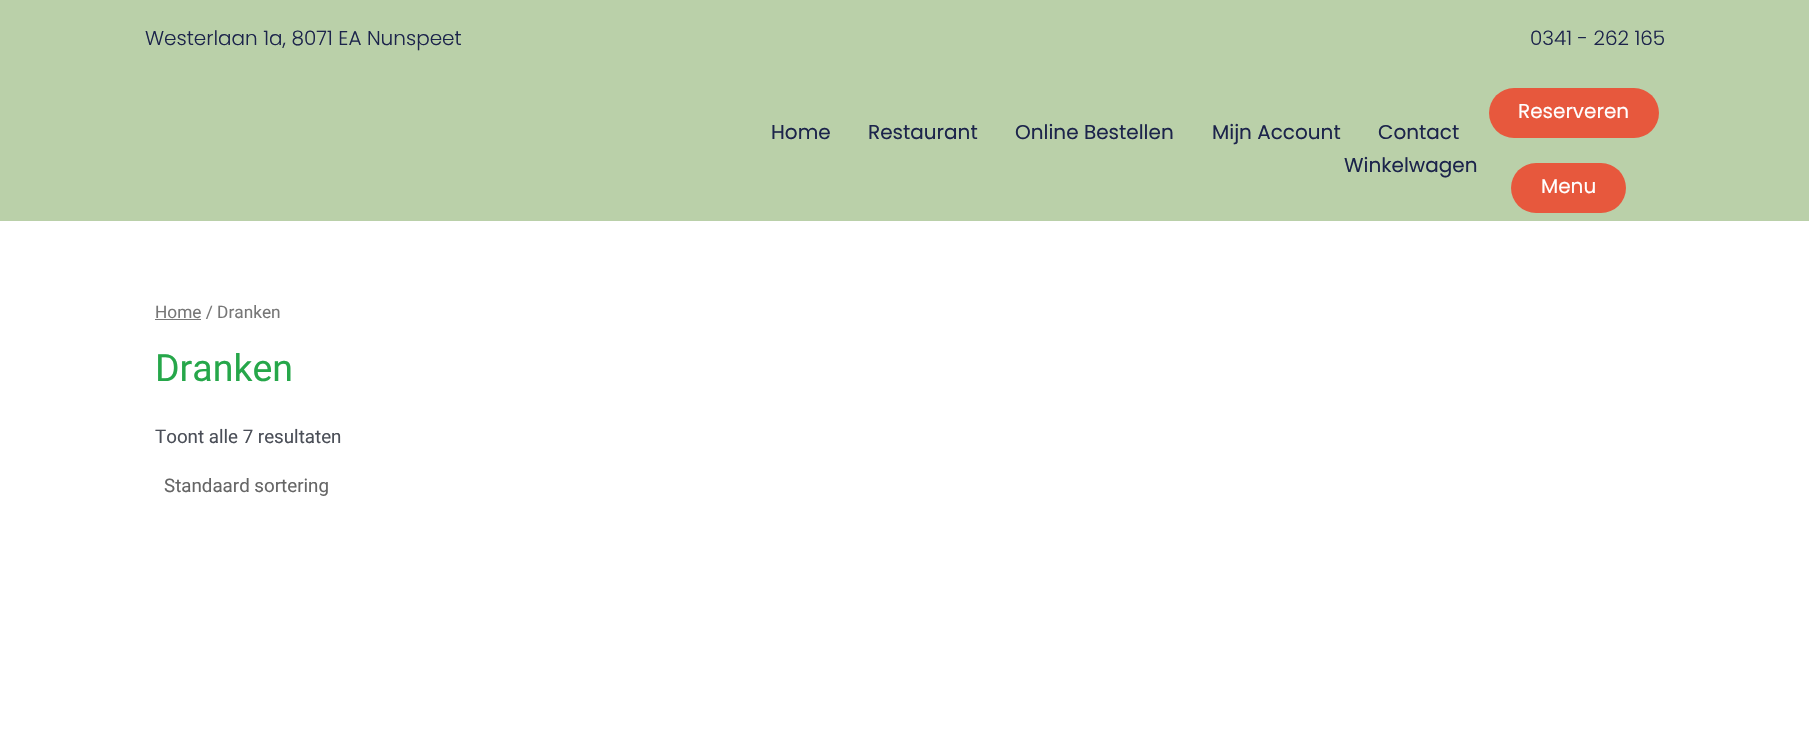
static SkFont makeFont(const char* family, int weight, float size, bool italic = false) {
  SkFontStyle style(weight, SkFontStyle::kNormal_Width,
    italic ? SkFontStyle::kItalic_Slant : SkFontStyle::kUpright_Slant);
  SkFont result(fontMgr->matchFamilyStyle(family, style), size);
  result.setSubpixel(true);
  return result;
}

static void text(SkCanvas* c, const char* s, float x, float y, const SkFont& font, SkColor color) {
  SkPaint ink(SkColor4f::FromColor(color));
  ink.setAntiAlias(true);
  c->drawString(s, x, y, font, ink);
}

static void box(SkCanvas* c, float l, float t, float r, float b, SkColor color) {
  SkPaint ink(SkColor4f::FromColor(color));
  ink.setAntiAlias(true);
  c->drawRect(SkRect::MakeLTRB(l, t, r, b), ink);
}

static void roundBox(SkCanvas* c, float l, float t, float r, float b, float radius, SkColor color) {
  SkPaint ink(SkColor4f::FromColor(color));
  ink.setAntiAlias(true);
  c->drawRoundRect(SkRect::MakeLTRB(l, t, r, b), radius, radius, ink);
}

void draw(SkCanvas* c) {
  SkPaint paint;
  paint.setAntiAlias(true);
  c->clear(0xffffffff);
  box(c, 0, 0, 1809, 221, 0xffbad0a9);
  SkFont face1 = makeFont("Poppins", 300, 20);
  text(c, "Westerlaan 1a, 8071 EA Nunspeet", 145, 45, face1, 0xff1c244b);
  text(c, "0341 - 262 165", 1530, 45, face1, 0xff1c244b);
  SkFont face2 = makeFont("Poppins", 400, 20);
  text(c, "Home", 771, 139, face2, 0xff1c244b);
  text(c, "Restaurant", 868, 139, face2, 0xff1c244b);
  text(c, "Online Bestellen", 1015, 139, face2, 0xff1c244b);
  text(c, "Mijn Account", 1212, 139, face2, 0xff1c244b);
  text(c, "Contact", 1378, 139, face2, 0xff1c244b);
  text(c, "Winkelwagen", 1344, 172, face2, 0xff1c244b);
  roundBox(c, 1489, 88, 1659, 138, 25, 0xffe7583d);
  text(c, "Reserveren", 1518, 118, face2, 0xffffffff);
  roundBox(c, 1511, 163, 1626, 213, 25, 0xffe7583d);
  text(c, "Menu", 1541, 193, face2, 0xffffffff);
  box(c, 155, 319, 201, 320, 0xff777777);
  SkFont face3 = makeFont("Roboto", 400, 17.25f);
  text(c, "Home / Dranken", 155, 318, face3, 0xff777777);
  SkFont face4 = makeFont("Roboto", 400, 37.5f);
  text(c, "Dranken", 155, 381, face4, 0xff26a74a);
  SkFont face5 = makeFont("Roboto", 400, 18.75f);
  text(c, "Toont alle 7 resultaten", 155, 443, face5, 0xff4b4f58);
  text(c, "Standaard sortering", 164, 492, face5, 0xff666666);
}
